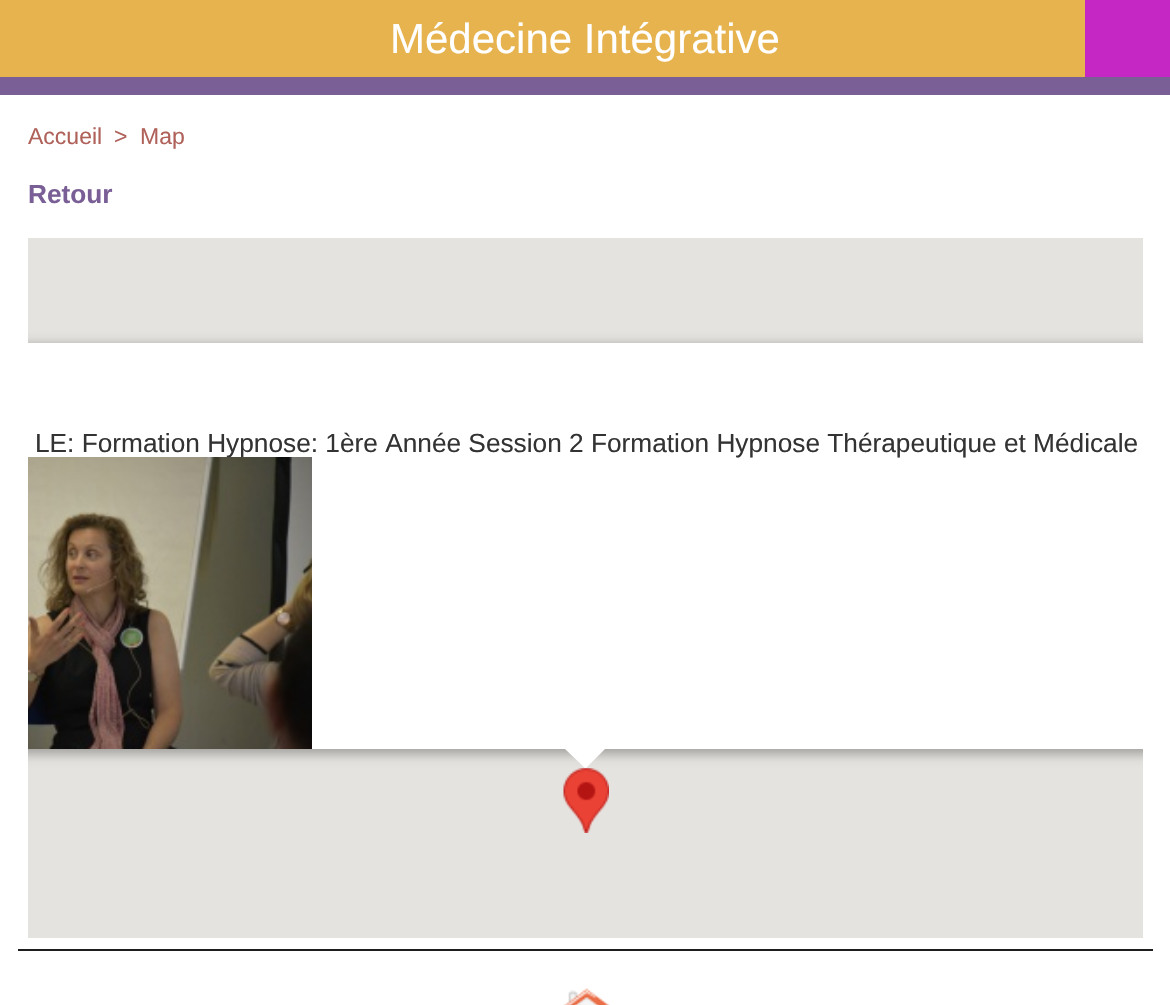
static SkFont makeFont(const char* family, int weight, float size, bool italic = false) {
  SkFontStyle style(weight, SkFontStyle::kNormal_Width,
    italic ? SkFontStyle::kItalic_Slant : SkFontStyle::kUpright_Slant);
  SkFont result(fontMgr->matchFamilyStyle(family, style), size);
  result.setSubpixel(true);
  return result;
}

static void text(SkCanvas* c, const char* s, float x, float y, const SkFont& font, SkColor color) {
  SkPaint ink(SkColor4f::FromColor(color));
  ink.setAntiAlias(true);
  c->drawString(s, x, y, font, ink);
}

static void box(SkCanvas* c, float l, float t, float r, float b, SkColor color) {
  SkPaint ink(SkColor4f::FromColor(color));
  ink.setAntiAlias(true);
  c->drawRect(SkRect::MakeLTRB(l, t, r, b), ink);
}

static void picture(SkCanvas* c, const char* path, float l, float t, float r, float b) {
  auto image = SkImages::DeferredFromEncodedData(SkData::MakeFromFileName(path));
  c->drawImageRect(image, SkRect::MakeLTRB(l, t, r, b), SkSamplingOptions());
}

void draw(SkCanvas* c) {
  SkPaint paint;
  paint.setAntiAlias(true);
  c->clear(0xffffffff);
  box(c, 0, 77, 1170, 95, 0xff7a5f96);
  box(c, 0, 0, 1085, 77, 0xffe6b34e);
  SkFont face1 = makeFont("Liberation Sans", 400, 42);
  text(c, "Médecine Intégrative", 390, 53, face1, 0xffffffff);
  box(c, 1085, 0, 1170, 77, 0xffc427c4);
  SkFont face2 = makeFont("Liberation Sans", 400, 23);
  text(c, "Accueil", 28, 144, face2, 0xffaf615a);
  text(c, ">", 114, 144, face2, 0xffaf615a);
  text(c, "Map", 140, 144, face2, 0xffaf615a);
  box(c, 18, 949, 1153, 951, 0xff1e1e1e);
  SkFont face3 = makeFont("Liberation Sans", 700, 26.25f);
  text(c, "Retour", 28, 203, face3, 0xff795f96);
  box(c, 28, 238, 1143, 938, 0xffe5e3df);
  picture(c, "img_02.png", 563, 768, 609, 833);
  c->save();
  c->clipRect(SkRect::MakeLTRB(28, 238, 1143, 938));
  paint.setColor(0x4d000000);
  paint.setMaskFilter(SkMaskFilter::MakeBlur(kNormal_SkBlurStyle, 6));
  c->drawRoundRect(SkRect::MakeLTRB(-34, 345, 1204, 754), 16, 16, paint);
  paint.setMaskFilter(nullptr);
  c->restore();
  box(c, 28, 343, 1143, 749, 0xffffffff);
  SkFont face4 = makeFont("Liberation Sans", 400, 26.25f);
  text(c, "LE: Formation Hypnose: 1ère Année Session 2 Formation Hypnose Thérapeutique et Médicale", 35, 452, face4, 0xff333333);
  picture(c, "img_01.png", 28, 457, 312, 749);
  paint.setColor(0xffffffff);
  c->drawPath(SkPathBuilder().moveTo(565, 749).lineTo(565, 747).lineTo(607, 747).lineTo(586, 768).lineTo(585, 768).close().detach(), paint);
  picture(c, "img_03.png", 563, 988, 610, 1005);
}
